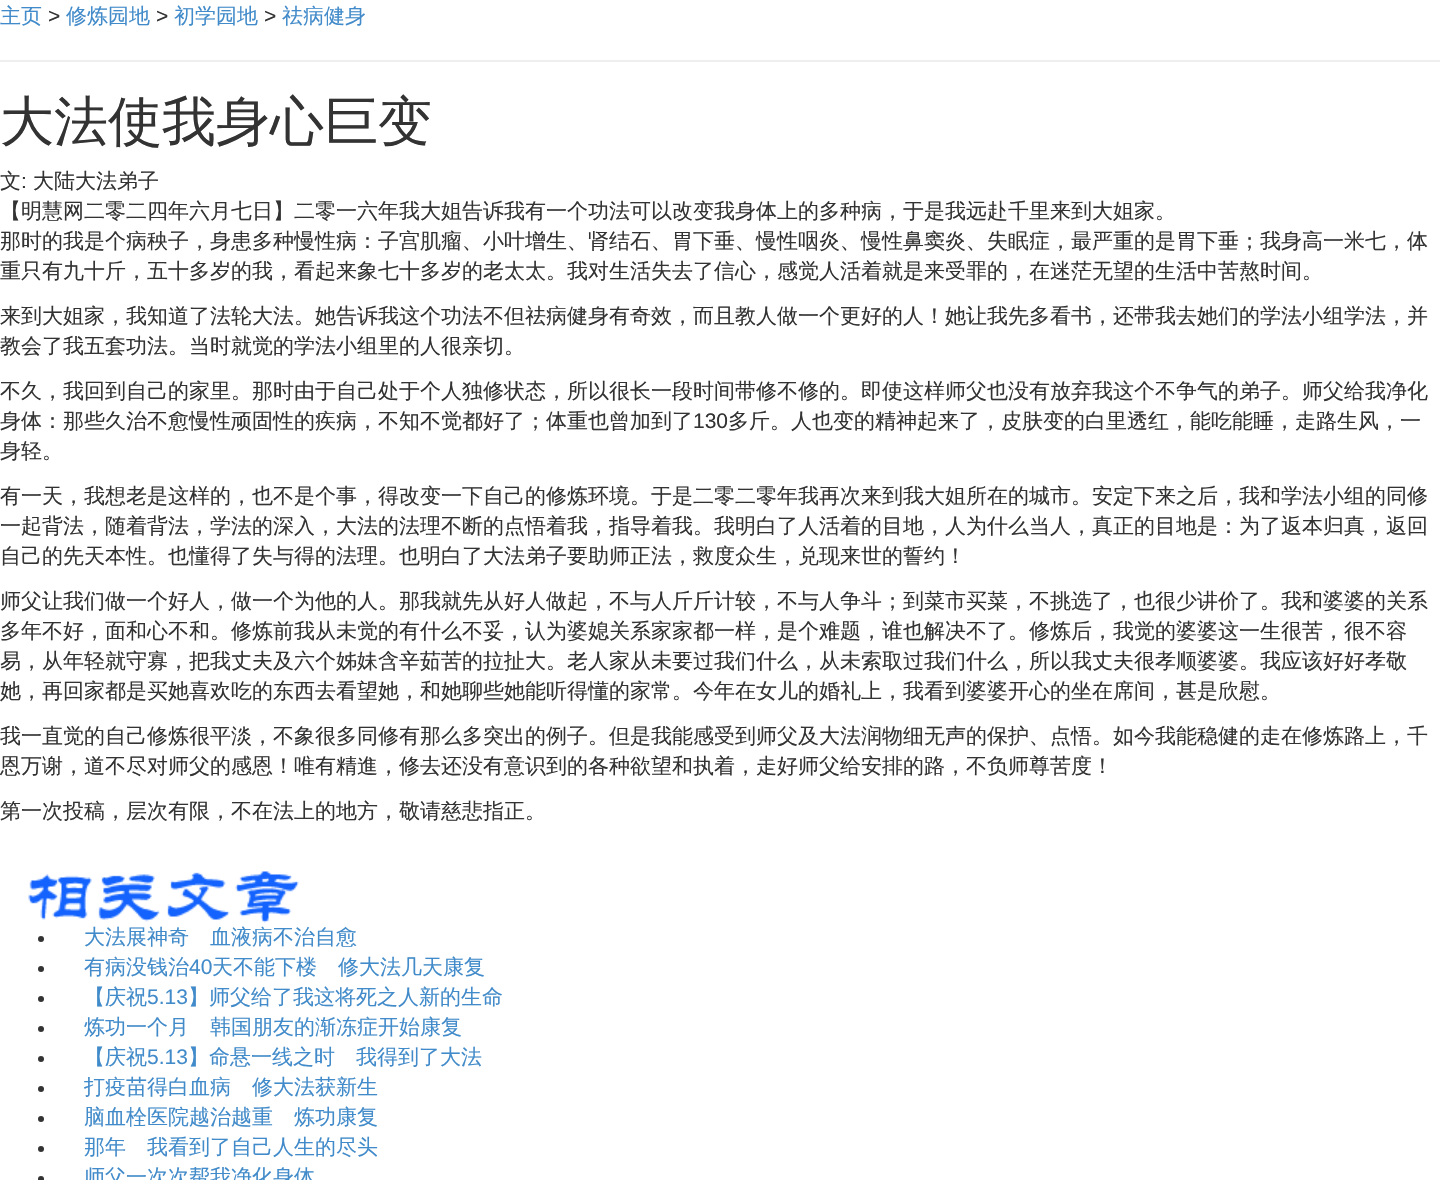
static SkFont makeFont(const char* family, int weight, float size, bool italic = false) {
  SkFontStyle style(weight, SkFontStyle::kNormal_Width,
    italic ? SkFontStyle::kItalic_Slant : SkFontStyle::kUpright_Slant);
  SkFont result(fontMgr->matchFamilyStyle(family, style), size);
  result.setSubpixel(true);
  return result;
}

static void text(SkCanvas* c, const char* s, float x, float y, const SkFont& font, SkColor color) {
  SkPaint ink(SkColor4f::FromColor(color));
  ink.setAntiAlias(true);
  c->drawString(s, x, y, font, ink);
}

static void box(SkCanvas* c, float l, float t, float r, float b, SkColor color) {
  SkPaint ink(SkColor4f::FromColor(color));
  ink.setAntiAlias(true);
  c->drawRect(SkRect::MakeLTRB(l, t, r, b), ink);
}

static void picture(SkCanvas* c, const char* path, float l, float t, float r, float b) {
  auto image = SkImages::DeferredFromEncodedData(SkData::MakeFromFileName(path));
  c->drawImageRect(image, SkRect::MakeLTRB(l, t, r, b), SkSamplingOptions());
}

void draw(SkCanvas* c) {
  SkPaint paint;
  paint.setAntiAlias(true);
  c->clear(0xffffffff);
  SkFont face1 = makeFont("WenQuanYi Zen Hei", 500, 21);
  text(c, "主页", 0, 23, face1, 0xff428bca);
  SkFont face2 = makeFont("Liberation Sans", 400, 21);
  text(c, ">", 48, 23, face2, 0xff333333);
  text(c, "修炼园地", 66, 23, face1, 0xff428bca);
  text(c, ">", 156, 23, face2, 0xff333333);
  text(c, "初学园地", 174, 23, face1, 0xff428bca);
  text(c, ">", 264, 23, face2, 0xff333333);
  text(c, "祛病健身", 282, 23, face1, 0xff428bca);
  box(c, 0, 60, 1440, 62, 0xffeeeeee);
  SkFont face3 = makeFont("WenQuanYi Zen Hei", 500, 54);
  text(c, "大法使我身心巨变", 0, 140, face3, 0xff333333);
  text(c, "文", 0, 188, face1, 0xff333333);
  text(c, ":", 21, 188, face2, 0xff333333);
  text(c, "大陆大法弟子", 33, 188, face1, 0xff333333);
  text(c, "【明慧网二零二四年六月七日】二零一六年我大姐告诉我有一个功法可以改变我身体上的多种病，于是我远赴千里来到大姐家。", 0, 218, face1, 0xff333333);
  text(c, "那时的我是个病秧子，身患多种慢性病：子宫肌瘤、小叶增生、肾结石、胃下垂、慢性咽炎、慢性鼻窦炎、失眠症，最严重的是胃下垂；我身高一米七，体", 0, 248, face1, 0xff333333);
  text(c, "重只有九十斤，五十多岁的我，看起来象七十多岁的老太太。我对生活失去了信心，感觉人活着就是来受罪的，在迷茫无望的生活中苦熬时间。", 0, 278, face1, 0xff333333);
  text(c, "来到大姐家，我知道了法轮大法。她告诉我这个功法不但祛病健身有奇效，而且教人做一个更好的人！她让我先多看书，还带我去她们的学法小组学法，并", 0, 323, face1, 0xff333333);
  text(c, "教会了我五套功法。当时就觉的学法小组里的人很亲切。", 0, 353, face1, 0xff333333);
  text(c, "不久，我回到自己的家里。那时由于自己处于个人独修状态，所以很长一段时间带修不修的。即使这样师父也没有放弃我这个不争气的弟子。师父给我净化", 0, 398, face1, 0xff333333);
  text(c, "身体：那些久治不愈慢性顽固性的疾病，不知不觉都好了；体重也曾加到了", 0, 428, face1, 0xff333333);
  text(c, "130", 693, 428, face2, 0xff333333);
  text(c, "多斤。人也变的精神起来了，皮肤变的白里透红，能吃能睡，走路生风，一", 728, 428, face1, 0xff333333);
  text(c, "身轻。", 0, 458, face1, 0xff333333);
  text(c, "有一天，我想老是这样的，也不是个事，得改变一下自己的修炼环境。于是二零二零年我再次来到我大姐所在的城市。安定下来之后，我和学法小组的同修", 0, 503, face1, 0xff333333);
  text(c, "一起背法，随着背法，学法的深入，大法的法理不断的点悟着我，指导着我。我明白了人活着的目地，人为什么当人，真正的目地是：为了返本归真，返回", 0, 533, face1, 0xff333333);
  text(c, "自己的先天本性。也懂得了失与得的法理。也明白了大法弟子要助师正法，救度众生，兑现来世的誓约！", 0, 563, face1, 0xff333333);
  text(c, "师父让我们做一个好人，做一个为他的人。那我就先从好人做起，不与人斤斤计较，不与人争斗；到菜市买菜，不挑选了，也很少讲价了。我和婆婆的关系", 0, 608, face1, 0xff333333);
  text(c, "多年不好，面和心不和。修炼前我从未觉的有什么不妥，认为婆媳关系家家都一样，是个难题，谁也解决不了。修炼后，我觉的婆婆这一生很苦，很不容", 0, 638, face1, 0xff333333);
  text(c, "易，从年轻就守寡，把我丈夫及六个姊妹含辛茹苦的拉扯大。老人家从未要过我们什么，从未索取过我们什么，所以我丈夫很孝顺婆婆。我应该好好孝敬", 0, 668, face1, 0xff333333);
  text(c, "她，再回家都是买她喜欢吃的东西去看望她，和她聊些她能听得懂的家常。今年在女儿的婚礼上，我看到婆婆开心的坐在席间，甚是欣慰。", 0, 698, face1, 0xff333333);
  text(c, "我一直觉的自己修炼很平淡，不象很多同修有那么多突出的例子。但是我能感受到师父及大法润物细无声的保护、点悟。如今我能稳健的走在修炼路上，千", 0, 743, face1, 0xff333333);
  text(c, "恩万谢，道不尽对师父的感恩！唯有精進，修去还没有意识到的各种欲望和执着，走好师父给安排的路，不负师尊苦度！", 0, 773, face1, 0xff333333);
  text(c, "第一次投稿，层次有限，不在法上的地方，敬请慈悲指正。", 0, 818, face1, 0xff333333);
  picture(c, "img_01.png", 28, 871, 299, 923);
  paint.setColor(0xff333333);
  c->drawCircle(41, 939, 3, paint);
  text(c, "大法展神奇　血液病不治自愈", 84, 944, face1, 0xff428bca);
  c->drawCircle(41, 969, 3, paint);
  text(c, "有病没钱治", 84, 974, face1, 0xff428bca);
  text(c, "40", 189, 974, face2, 0xff428bca);
  text(c, "天不能下楼　修大法几天康复", 212, 974, face1, 0xff428bca);
  c->drawCircle(41, 999, 3, paint);
  text(c, "【庆祝", 84, 1004, face1, 0xff428bca);
  text(c, "5.13", 147, 1004, face2, 0xff428bca);
  text(c, "】师父给了我这将死之人新的生命", 188, 1004, face1, 0xff428bca);
  c->drawCircle(41, 1029, 3, paint);
  text(c, "炼功一个月　韩国朋友的渐冻症开始康复", 84, 1034, face1, 0xff428bca);
  c->drawCircle(41, 1059, 3, paint);
  text(c, "【庆祝", 84, 1064, face1, 0xff428bca);
  text(c, "5.13", 147, 1064, face2, 0xff428bca);
  text(c, "】命悬一线之时　我得到了大法", 188, 1064, face1, 0xff428bca);
  c->drawCircle(41, 1089, 3, paint);
  text(c, "打疫苗得白血病　修大法获新生", 84, 1094, face1, 0xff428bca);
  c->drawCircle(41, 1119, 3, paint);
  text(c, "脑血栓医院越治越重　炼功康复", 84, 1124, face1, 0xff428bca);
  c->drawCircle(41, 1149, 3, paint);
  text(c, "那年　我看到了自己人生的尽头", 84, 1154, face1, 0xff428bca);
  c->drawCircle(41, 1179, 3, paint);
  text(c, "师父一次次帮我净化身体", 84, 1184, face1, 0xff428bca);
}
